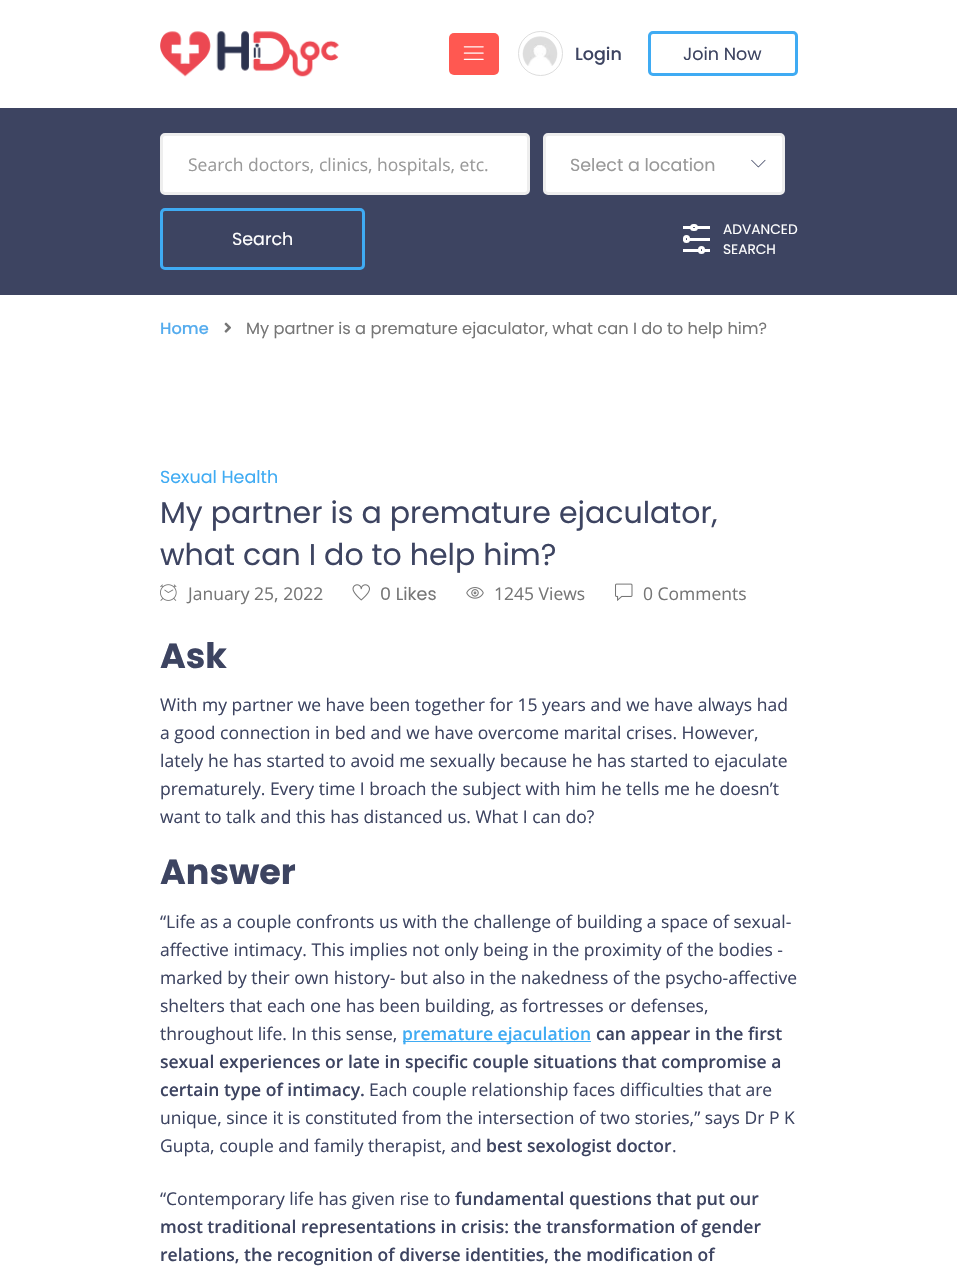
static SkFont makeFont(const char* family, int weight, float size, bool italic = false) {
  SkFontStyle style(weight, SkFontStyle::kNormal_Width,
    italic ? SkFontStyle::kItalic_Slant : SkFontStyle::kUpright_Slant);
  SkFont result(fontMgr->matchFamilyStyle(family, style), size);
  result.setSubpixel(true);
  return result;
}

static void text(SkCanvas* c, const char* s, float x, float y, const SkFont& font, SkColor color) {
  SkPaint ink(SkColor4f::FromColor(color));
  ink.setAntiAlias(true);
  c->drawString(s, x, y, font, ink);
}

static void box(SkCanvas* c, float l, float t, float r, float b, SkColor color) {
  SkPaint ink(SkColor4f::FromColor(color));
  ink.setAntiAlias(true);
  c->drawRect(SkRect::MakeLTRB(l, t, r, b), ink);
}

static void roundBox(SkCanvas* c, float l, float t, float r, float b, float radius, SkColor color) {
  SkPaint ink(SkColor4f::FromColor(color));
  ink.setAntiAlias(true);
  c->drawRoundRect(SkRect::MakeLTRB(l, t, r, b), radius, radius, ink);
}

static void picture(SkCanvas* c, const char* path, float l, float t, float r, float b) {
  auto image = SkImages::DeferredFromEncodedData(SkData::MakeFromFileName(path));
  c->drawImageRect(image, SkRect::MakeLTRB(l, t, r, b), SkSamplingOptions());
}

void draw(SkCanvas* c) {
  SkPaint paint;
  paint.setAntiAlias(true);
  c->clear(0xffffffff);
  picture(c, "img_01.png", 160, 31, 339, 77);
  roundBox(c, 449, 33, 499, 75, 5, 0xffff5851);
  picture(c, "img_02.png", 463, 46, 484, 60);
  paint.setStyle(SkPaint::kStroke_Style);
  paint.setStrokeWidth(1);
  paint.setColor(0xffdddddd);
  c->drawCircle(540.5f, 53.5f, 22, paint);
  picture(c, "img_03.png", 522, 36, 558, 66);
  SkFont face1 = makeFont("Poppins", 500, 17.5f);
  text(c, "Login", 575, 60, face1, 0xff3d4461);
  paint.setStrokeWidth(3);
  paint.setColor(0xff3fabf3);
  c->drawRoundRect(SkRect::MakeLTRB(649.5f, 32.5f, 796.5f, 74.5f), 3.5f, 3.5f, paint);
  SkFont face2 = makeFont("Poppins", 400, 17.5f);
  text(c, "Join Now", 683, 60, face2, 0xff3d4461);
  box(c, 0, 108, 957, 295, 0xff3d4461);
  paint.setStyle(SkPaint::kFill_Style);
  paint.setColor(0xffffffff);
  c->drawRoundRect(SkRect::MakeLTRB(161.5f, 134.5f, 528.5f, 193.5f), 3.5f, 3.5f, paint);
  paint.setStyle(SkPaint::kStroke_Style);
  paint.setColor(0xffeeeeee);
  c->drawRoundRect(SkRect::MakeLTRB(161.5f, 134.5f, 528.5f, 193.5f), 3.5f, 3.5f, paint);
  SkFont face3 = makeFont("Open Sans", 400, 17.5f);
  text(c, "Search doctors, clinics, hospitals, etc.", 188, 171, face3, 0xff999999);
  paint.setStyle(SkPaint::kFill_Style);
  paint.setColor(0xffffffff);
  c->drawRoundRect(SkRect::MakeLTRB(544.5f, 134.5f, 783.5f, 193.5f), 3.5f, 3.5f, paint);
  paint.setStyle(SkPaint::kStroke_Style);
  paint.setColor(0xffeeeeee);
  c->drawRoundRect(SkRect::MakeLTRB(544.5f, 134.5f, 783.5f, 193.5f), 3.5f, 3.5f, paint);
  text(c, "Select a location", 570, 171, face2, 0xff999999);
  picture(c, "img_04.png", 751, 159, 766, 168);
  paint.setColor(0xff3fabf3);
  c->drawRoundRect(SkRect::MakeLTRB(161.5f, 209.5f, 363.5f, 268.5f), 3.5f, 3.5f, paint);
  text(c, "Search", 232, 245, face2, 0xffffffff);
  box(c, 683, 226, 710, 229, 0xffffffff);
  paint.setStyle(SkPaint::kFill_Style);
  paint.setColor(0xff3d4461);
  c->drawRoundRect(SkRect::MakeLTRB(691.5f, 225.5f, 696.5f, 229.5f), 2, 2, paint);
  paint.setStyle(SkPaint::kStroke_Style);
  paint.setColor(0xffffffff);
  c->drawRoundRect(SkRect::MakeLTRB(691.5f, 225.5f, 696.5f, 229.5f), 2, 2, paint);
  box(c, 683, 238, 710, 241, 0xffffffff);
  paint.setStyle(SkPaint::kFill_Style);
  paint.setColor(0xff3d4461);
  c->drawRoundRect(SkRect::MakeLTRB(684.5f, 236.5f, 688.5f, 241.5f), 2, 2, paint);
  paint.setStyle(SkPaint::kStroke_Style);
  paint.setColor(0xffffffff);
  c->drawRoundRect(SkRect::MakeLTRB(684.5f, 236.5f, 688.5f, 241.5f), 2, 2, paint);
  box(c, 683, 249, 710, 252, 0xffffffff);
  paint.setStyle(SkPaint::kFill_Style);
  paint.setColor(0xff3d4461);
  c->drawRoundRect(SkRect::MakeLTRB(699.5f, 247.5f, 703.5f, 252.5f), 2, 2, paint);
  paint.setStyle(SkPaint::kStroke_Style);
  paint.setColor(0xffffffff);
  c->drawRoundRect(SkRect::MakeLTRB(699.5f, 247.5f, 703.5f, 252.5f), 2, 2, paint);
  SkFont face4 = makeFont("Poppins", 400, 13.75f);
  text(c, "ADVANCED", 723, 234, face4, 0xffffffff);
  text(c, "SEARCH", 723, 254, face4, 0xffffffff);
  SkFont face5 = makeFont("Poppins", 500, 16.25f);
  text(c, "Home", 160, 334, face5, 0xff55acee);
  picture(c, "img_05.png", 224, 322, 231, 333);
  SkFont face6 = makeFont("Poppins", 400, 16.25f);
  text(c, "My partner is a premature ejaculator, what can I do to help him?", 246, 334, face6, 0xff767676);
  text(c, "Sexual Health", 160, 483, face2, 0xff3fabf3);
  SkFont face7 = makeFont("Poppins", 400, 30);
  text(c, "My partner is a premature ejaculator,", 160, 523, face7, 0xff3d4461);
  text(c, "what can I do to help him?", 160, 565, face7, 0xff3d4461);
  picture(c, "img_06.png", 160, 584, 177, 601);
  text(c, "January 25, 2022", 188, 600, face3, 0xff767676);
  picture(c, "img_07.png", 352, 584, 370, 601);
  text(c, "0 Likes", 380, 600, face2, 0xff767676);
  picture(c, "img_08.png", 466, 587, 484, 599);
  text(c, "1245 Views", 494, 600, face3, 0xff767676);
  picture(c, "img_09.png", 615, 583, 633, 601);
  text(c, "0 Comments", 643, 600, face3, 0xff767676);
  SkFont face8 = makeFont("Poppins", 700, 35);
  text(c, "Ask", 160, 668, face8, 0xff3d4461);
  text(c, "With my partner we have been together for 15 years and we have always had", 160, 711, face3, 0xff3d4461);
  text(c, "a good connection in bed and we have overcome marital crises. However,", 160, 739, face3, 0xff3d4461);
  text(c, "lately he has started to avoid me sexually because he has started to ejaculate", 160, 767, face3, 0xff3d4461);
  text(c, "prematurely. Every time I broach the subject with him he tells me he doesn’t", 160, 795, face3, 0xff3d4461);
  text(c, "want to talk and this has distanced us. What I can do?", 160, 823, face3, 0xff3d4461);
  text(c, "Answer", 160, 884, face8, 0xff3d4461);
  text(c, "“Life as a couple confronts us with the challenge of building a space of sexual-", 160, 928, face3, 0xff3d4461);
  text(c, "affective intimacy. This implies not only being in the proximity of the bodies -", 160, 956, face3, 0xff3d4461);
  text(c, "marked by their own history- but also in the nakedness of the psycho-affective", 160, 984, face3, 0xff3d4461);
  text(c, "shelters that each one has been building, as fortresses or defenses,", 160, 1012, face3, 0xff3d4461);
  text(c, "throughout life. In this sense,", 160, 1040, face3, 0xff3d4461);
  box(c, 403, 1041, 591, 1042, 0xff3fabf3);
  SkFont face9 = makeFont("Open Sans", 600, 17.5f);
  text(c, "premature ejaculation", 402, 1040, face9, 0xff3fabf3);
  text(c, "can appear in the first", 596, 1040, face9, 0xff3d4461);
  text(c, "sexual experiences or late in specific couple situations that compromise a", 160, 1068, face9, 0xff3d4461);
  text(c, "certain type of intimacy.", 160, 1096, face9, 0xff3d4461);
  text(c, "Each couple relationship faces difficulties that are", 369, 1096, face3, 0xff3d4461);
  text(c, "unique, since it is constituted from the intersection of two stories,” says Dr P K", 160, 1124, face3, 0xff3d4461);
  text(c, "Gupta, couple and family therapist, and", 160, 1152, face3, 0xff3d4461);
  text(c, "best sexologist doctor", 486, 1152, face9, 0xff3d4461);
  text(c, ".", 672, 1152, face3, 0xff3d4461);
  text(c, "“Contemporary life has given rise to", 160, 1205, face3, 0xff3d4461);
  text(c, "fundamental questions that put our", 455, 1205, face9, 0xff3d4461);
  text(c, "most traditional representations in crisis: the transformation of gender", 160, 1233, face9, 0xff3d4461);
  text(c, "relations, the recognition of diverse identities, the modification of", 160, 1261, face9, 0xff3d4461);
}
